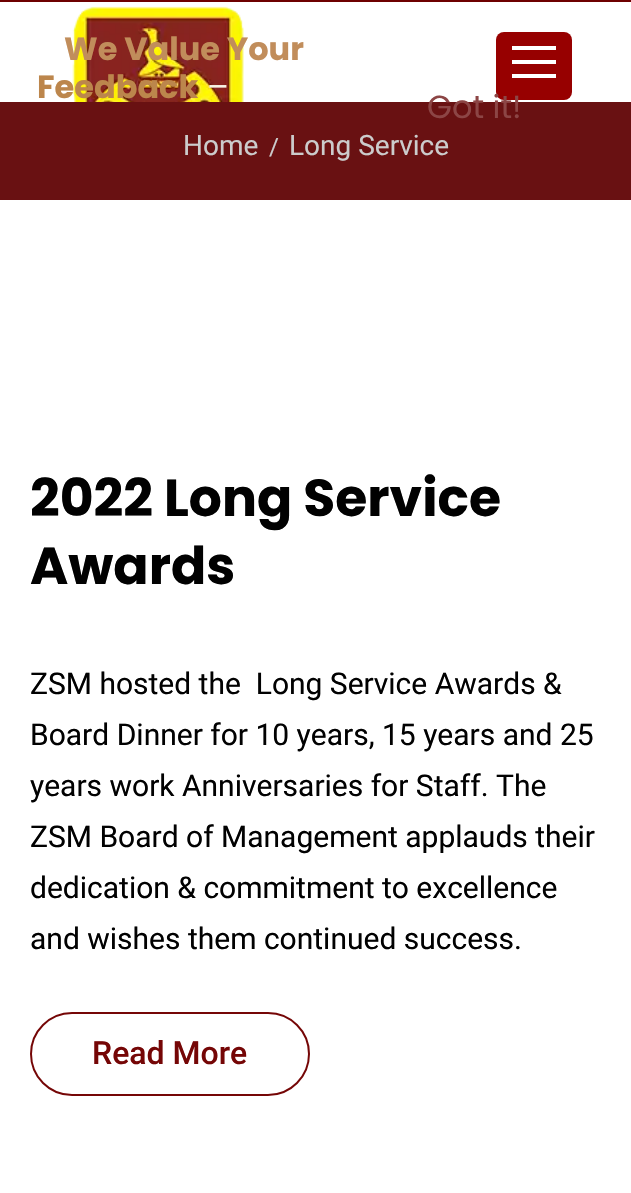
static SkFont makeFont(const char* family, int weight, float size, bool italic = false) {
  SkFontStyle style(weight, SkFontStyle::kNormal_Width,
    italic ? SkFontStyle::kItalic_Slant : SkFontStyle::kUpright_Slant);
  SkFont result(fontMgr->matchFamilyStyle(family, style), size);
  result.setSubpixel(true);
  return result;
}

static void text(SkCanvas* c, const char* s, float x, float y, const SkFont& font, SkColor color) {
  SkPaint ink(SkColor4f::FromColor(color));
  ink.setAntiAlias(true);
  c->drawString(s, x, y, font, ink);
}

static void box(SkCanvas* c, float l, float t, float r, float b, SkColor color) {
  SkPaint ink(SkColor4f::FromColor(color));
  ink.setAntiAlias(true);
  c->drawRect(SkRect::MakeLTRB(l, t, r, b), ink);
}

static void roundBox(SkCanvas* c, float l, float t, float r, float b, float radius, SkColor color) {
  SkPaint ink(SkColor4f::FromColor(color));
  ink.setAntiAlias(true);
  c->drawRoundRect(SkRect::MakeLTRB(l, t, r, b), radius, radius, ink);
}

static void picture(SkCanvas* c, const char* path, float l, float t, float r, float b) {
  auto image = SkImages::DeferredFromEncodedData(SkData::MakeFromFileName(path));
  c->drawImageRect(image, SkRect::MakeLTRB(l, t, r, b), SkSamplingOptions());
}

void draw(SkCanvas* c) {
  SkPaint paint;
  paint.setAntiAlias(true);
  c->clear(0xffffffff);
  picture(c, "img_01.png", 72, 6, 244, 102);
  SkFont face1 = makeFont("Poppins", 700, 32);
  text(c, "We Value Your", 64, 60, face1, 0xffc18d5b);
  text(c, "Feedback", 37, 98, face1, 0xffbc864c);
  SkFont face2 = makeFont("Poppins", 400, 32);
  text(c, "–", 207, 98, face2, 0xfff8f3e6);
  roundBox(c, 496, 32, 572, 100, 8, 0xff970000);
  box(c, 0, 102, 631, 200, 0xff691112);
  text(c, "Got it!", 427, 118, face2, 0xff8c4545);
  box(c, 0, 0, 631, 2, 0xff6e0000);
  box(c, 512, 46, 556, 50, 0xffffffff);
  box(c, 512, 60, 556, 64, 0xffffffff);
  box(c, 512, 74, 556, 78, 0xffffffff);
  SkFont face3 = makeFont("Roboto", 400, 28);
  text(c, "Home", 183, 155, face3, 0xffcccccc);
  SkFont face4 = makeFont("Roboto", 400, 24);
  text(c, "/", 269, 155, face4, 0xffcccccc);
  text(c, "Long Service", 289, 155, face3, 0xffcccccc);
  SkFont face5 = makeFont("Poppins", 700, 52);
  text(c, "2022 Long Service", 30, 516, face5, 0xff010101);
  text(c, "Awards", 30, 584, face5, 0xff010101);
  SkFont face6 = makeFont("Roboto", 400, 30);
  text(c, "ZSM hosted the  Long Service Awards &", 30, 694, face6, 0xff010101);
  text(c, "Board Dinner for 10 years, 15 years and 25", 30, 745, face6, 0xff010101);
  text(c, "years work Anniversaries for Staff. The", 30, 796, face6, 0xff010101);
  text(c, "ZSM Board of Management applauds their", 30, 847, face6, 0xff010101);
  text(c, "dedication & commitment to excellence", 30, 898, face6, 0xff010101);
  text(c, "and wishes them continued success.", 30, 949, face6, 0xff010101);
  paint.setStyle(SkPaint::kStroke_Style);
  paint.setStrokeWidth(2);
  paint.setColor(0xff750606);
  c->drawRoundRect(SkRect::MakeLTRB(31, 1013, 309, 1095), 41, 41, paint);
  SkFont face7 = makeFont("Roboto", 500, 32);
  text(c, "Read More", 92, 1064, face7, 0xff750606);
}
